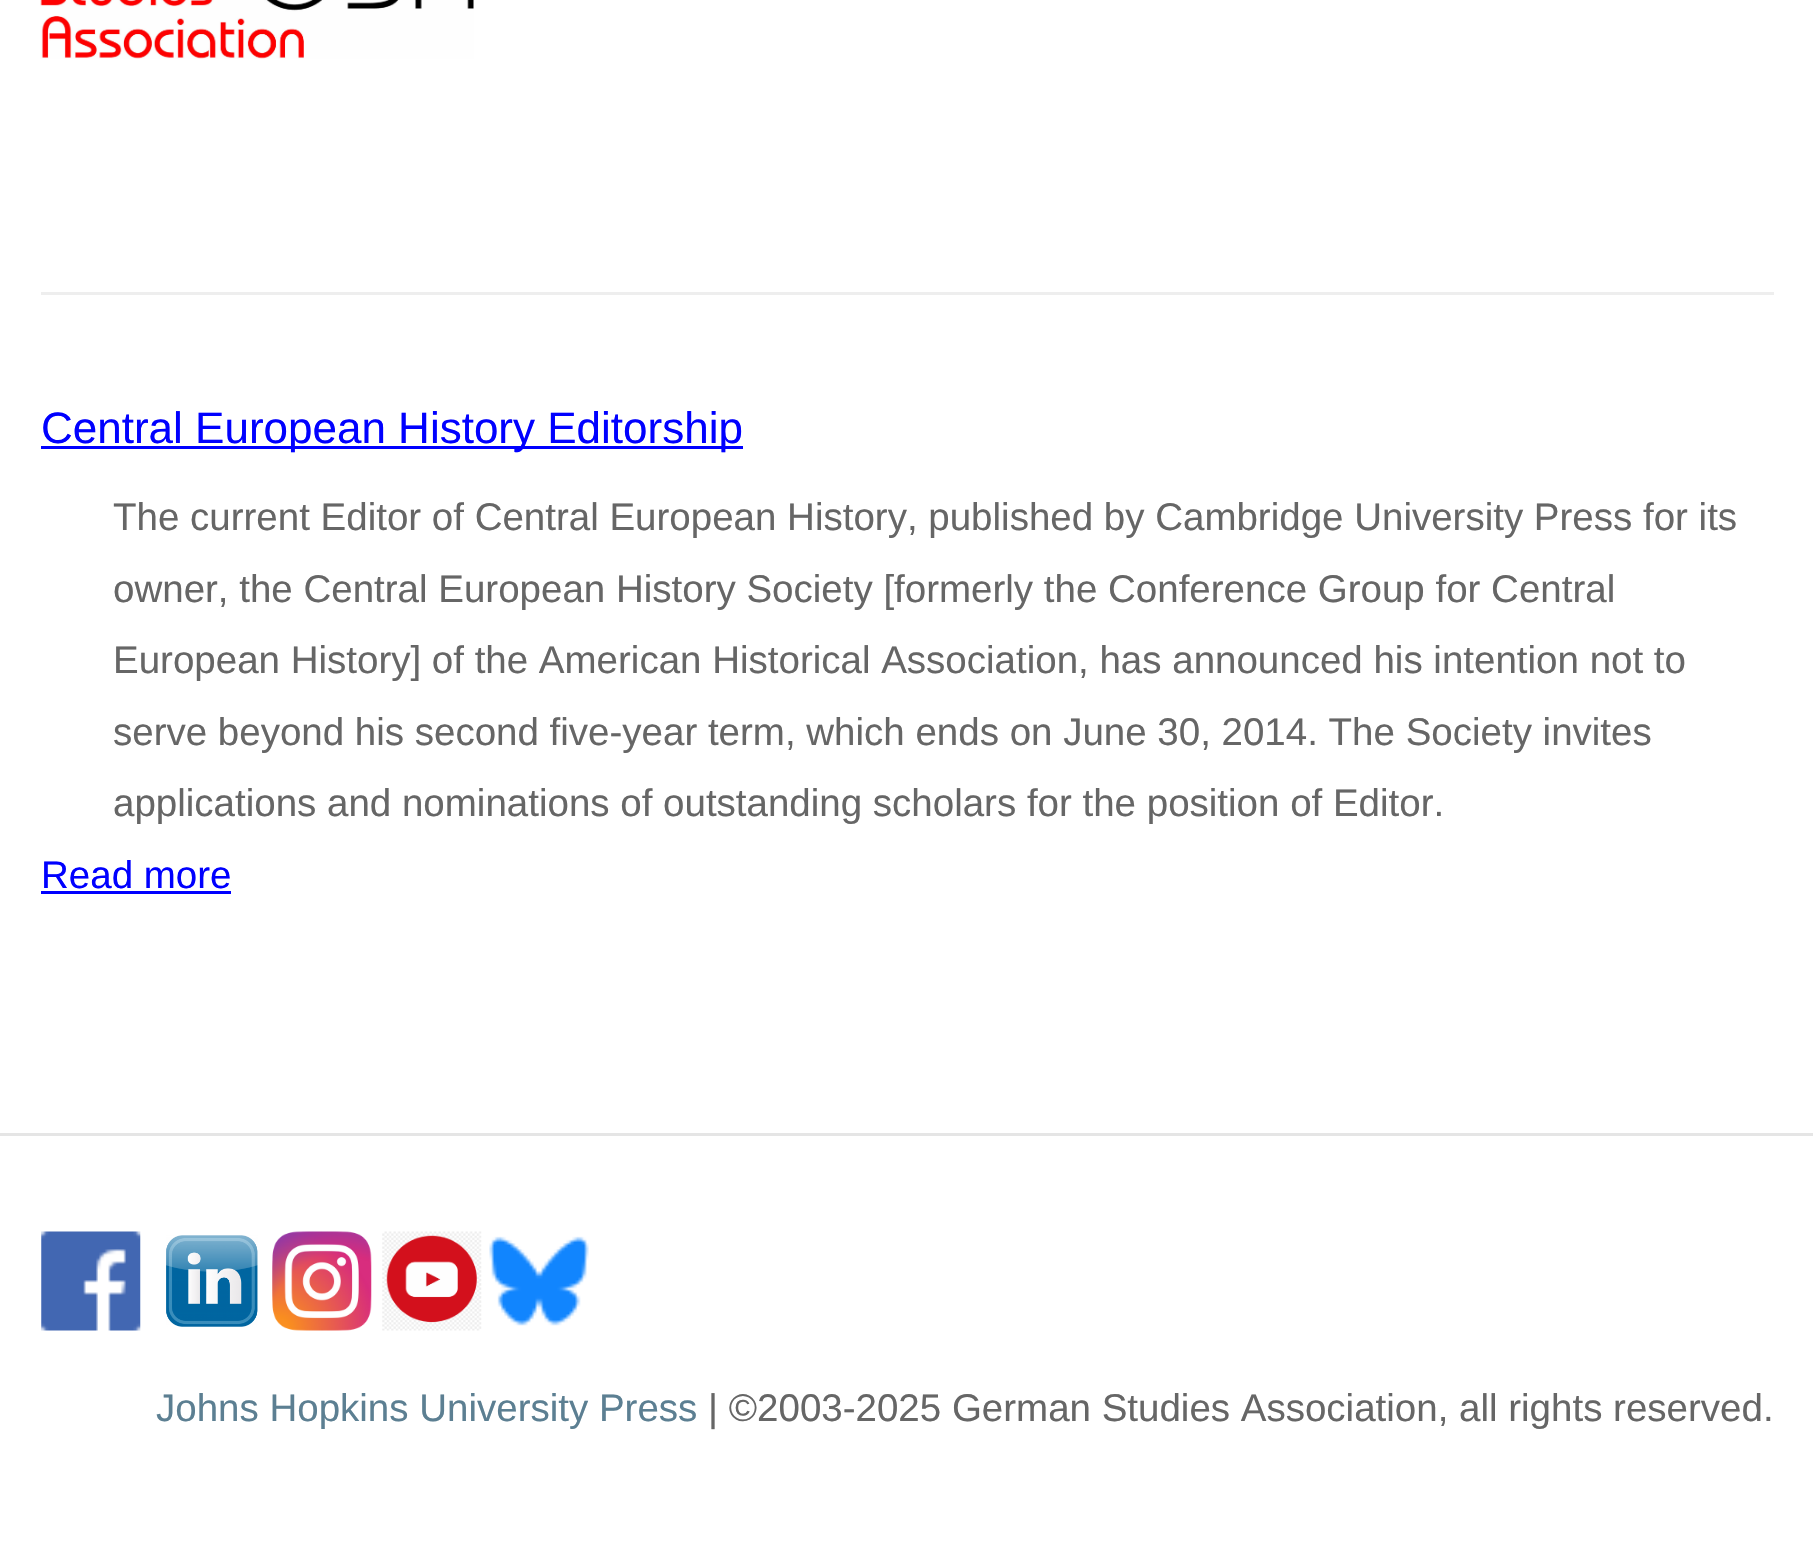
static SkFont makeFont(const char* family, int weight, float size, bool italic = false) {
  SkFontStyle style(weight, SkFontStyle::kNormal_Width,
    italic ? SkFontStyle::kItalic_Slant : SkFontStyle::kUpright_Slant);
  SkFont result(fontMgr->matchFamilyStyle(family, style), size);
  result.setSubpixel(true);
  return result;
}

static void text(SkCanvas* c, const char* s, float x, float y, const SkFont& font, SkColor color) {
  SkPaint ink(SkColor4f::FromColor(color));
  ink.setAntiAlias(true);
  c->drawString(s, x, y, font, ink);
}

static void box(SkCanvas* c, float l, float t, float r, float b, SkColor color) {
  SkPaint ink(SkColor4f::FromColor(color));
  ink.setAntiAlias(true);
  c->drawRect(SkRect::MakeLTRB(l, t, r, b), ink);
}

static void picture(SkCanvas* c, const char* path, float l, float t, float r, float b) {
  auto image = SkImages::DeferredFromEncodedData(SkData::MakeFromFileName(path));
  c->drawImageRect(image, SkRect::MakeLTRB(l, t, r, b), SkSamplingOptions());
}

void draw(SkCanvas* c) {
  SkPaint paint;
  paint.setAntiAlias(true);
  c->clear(0xffffffff);
  picture(c, "img_01.png", 40, 0, 474, 59);
  box(c, 41, 292, 1774, 295, 0xffeeeeee);
  box(c, 41, 446, 743, 449, 0xff0000ff);
  SkFont face1 = makeFont("Liberation Sans", 400, 44);
  text(c, "Central European History Editorship", 41, 443, face1, 0xff0000ff);
  SkFont face2 = makeFont("Liberation Sans", 400, 38.5f);
  text(c, "The current Editor of Central European History, published by Cambridge University Press for its", 113, 530, face2, 0xff666666);
  text(c, "owner, the Central European History Society [formerly the Conference Group for Central", 113, 602, face2, 0xff666666);
  text(c, "European History] of the American Historical Association, has announced his intention not to", 113, 673, face2, 0xff666666);
  text(c, "serve beyond his second five-year term, which ends on June 30, 2014. The Society invites", 113, 745, face2, 0xff666666);
  text(c, "applications and nominations of outstanding scholars for the position of Editor.", 113, 816, face2, 0xff666666);
  text(c, "Read more", 41, 888, face2, 0xff0000ff);
  box(c, 41, 891, 231, 894, 0xff0000ff);
  box(c, 0, 1133, 1813, 1136, 0xffe5e5e5);
  picture(c, "img_02.png", 41, 1231, 141, 1331);
  picture(c, "img_03.png", 166, 1235, 258, 1327);
  picture(c, "img_04.png", 272, 1231, 372, 1331);
  picture(c, "img_05.png", 382, 1231, 482, 1331);
  picture(c, "img_06.png", 489, 1236, 589, 1326);
  text(c, "Johns Hopkins University Press", 156, 1421, face2, 0xff5c7f92);
  text(c, "| ©2003-2025 German Studies Association, all rights reserved.", 708, 1421, face2, 0xff666666);
}
